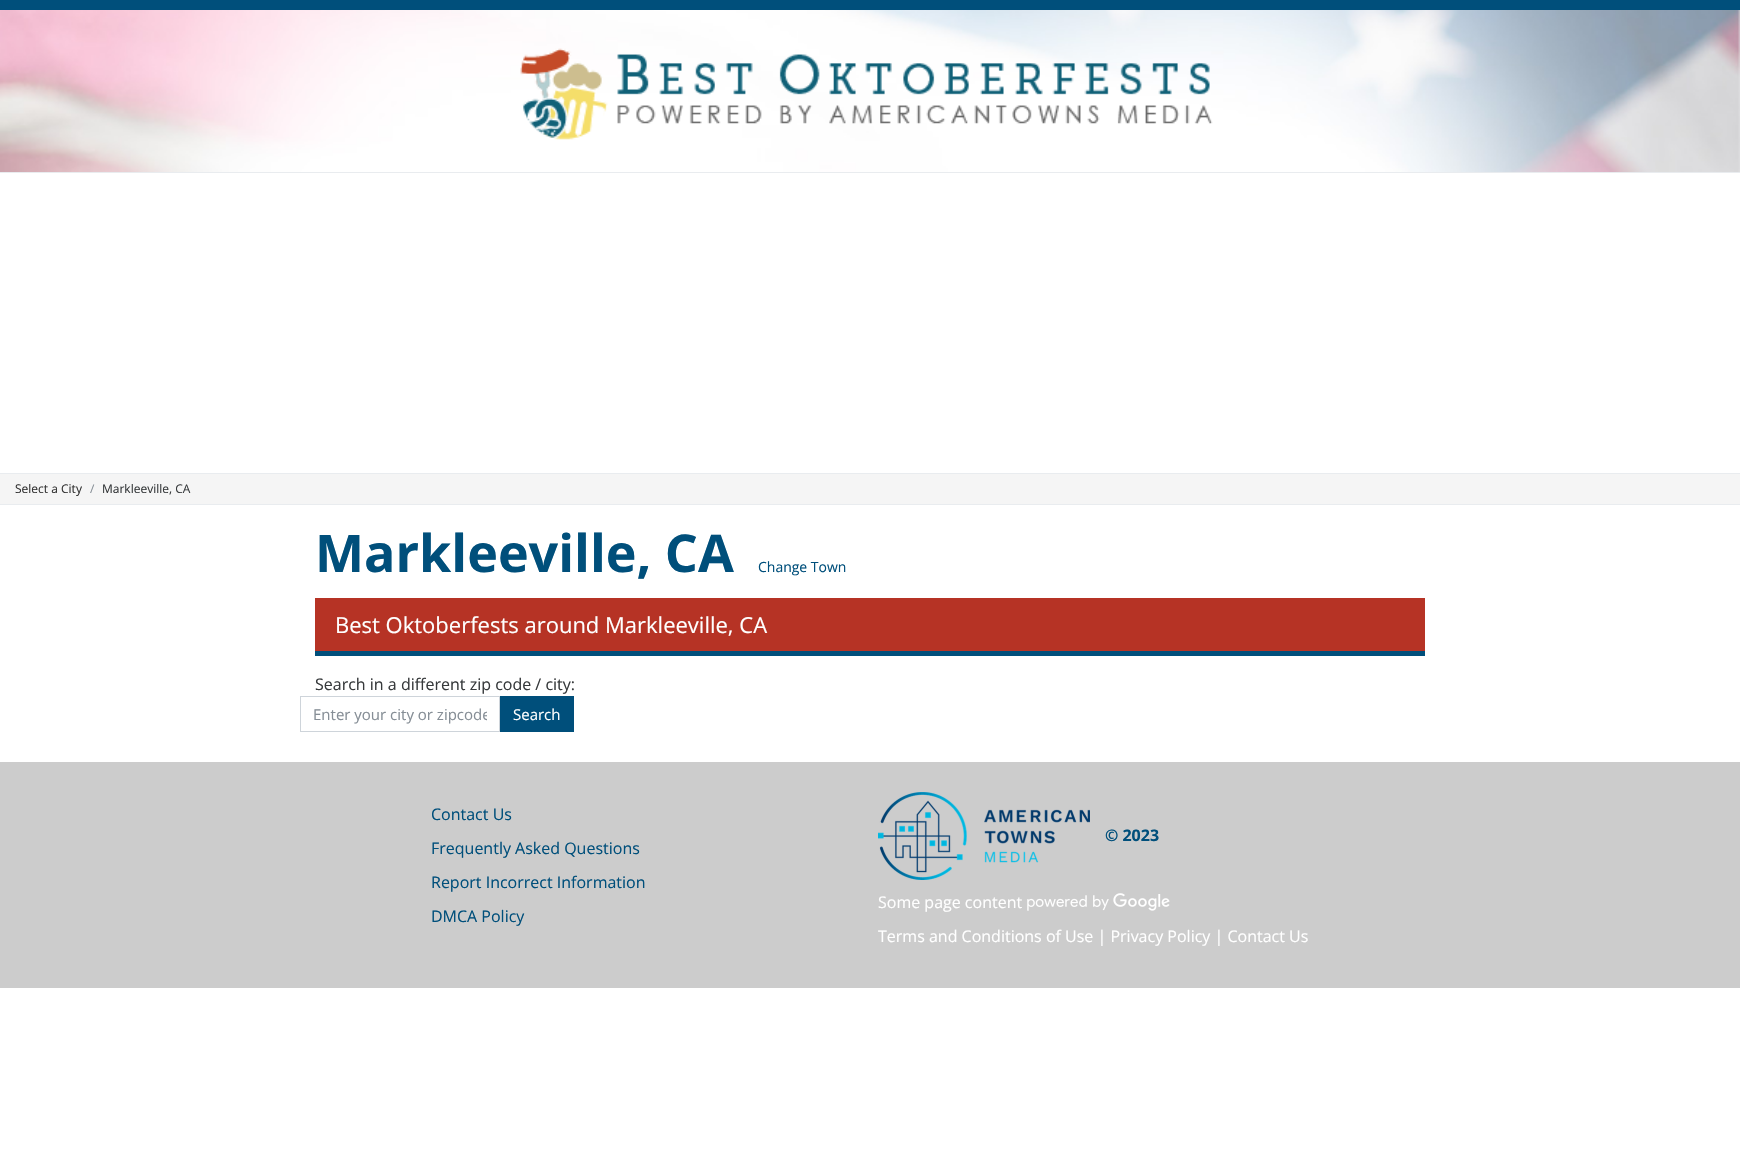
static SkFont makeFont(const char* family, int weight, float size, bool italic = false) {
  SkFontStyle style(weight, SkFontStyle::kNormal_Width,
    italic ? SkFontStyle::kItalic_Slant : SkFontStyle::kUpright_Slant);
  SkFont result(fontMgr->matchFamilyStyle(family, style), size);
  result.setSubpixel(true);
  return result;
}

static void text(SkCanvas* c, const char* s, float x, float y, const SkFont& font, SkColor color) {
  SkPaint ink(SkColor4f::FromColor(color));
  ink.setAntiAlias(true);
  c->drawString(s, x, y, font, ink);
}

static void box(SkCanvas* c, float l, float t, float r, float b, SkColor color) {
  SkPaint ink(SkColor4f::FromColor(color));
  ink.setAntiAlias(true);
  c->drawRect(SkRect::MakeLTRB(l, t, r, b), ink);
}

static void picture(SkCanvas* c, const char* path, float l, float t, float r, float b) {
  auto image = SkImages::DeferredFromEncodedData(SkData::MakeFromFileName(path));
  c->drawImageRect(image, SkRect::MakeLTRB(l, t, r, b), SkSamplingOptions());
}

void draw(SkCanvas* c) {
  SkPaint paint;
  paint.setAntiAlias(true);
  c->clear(0xffffffff);
  box(c, 0, 0, 1740, 10, 0xff004f7b);
  picture(c, "img_01.png", 0, 10, 1740, 172);
  box(c, 0, 172, 1740, 173, 0xffe9ecef);
  picture(c, "img_02.png", 520, 48, 1213, 140);
  box(c, 0, 474, 1740, 504, 0xfff5f5f5);
  box(c, 0, 473, 1740, 474, 0xffe9ecef);
  box(c, 0, 504, 1740, 505, 0xffe9ecef);
  SkFont face1 = makeFont("Open Sans", 400, 12);
  text(c, "Select a City", 15, 493, face1, 0xff333333);
  text(c, "/", 90, 493, face1, 0xff868e96);
  text(c, "Markleeville, CA", 102, 493, face1, 0xff373a3c);
  SkFont face2 = makeFont("Open Sans", 700, 52);
  text(c, "Markleeville, CA", 315, 572, face2, 0xff004f7b);
  SkFont face3 = makeFont("Open Sans", 400, 14);
  text(c, "Change Town", 758, 572, face3, 0xff004f7b);
  box(c, 315, 598, 1425, 651, 0xffb63325);
  box(c, 315, 651, 1425, 656, 0xff004f7b);
  SkFont face4 = makeFont("Open Sans", 400, 22);
  text(c, "Best Oktoberfests around Markleeville, CA", 335, 633, face4, 0xffffffff);
  SkFont face5 = makeFont("Open Sans", 400, 16);
  text(c, "Search in a different zip code / city:", 315, 690, face5, 0xff373a3c);
  paint.setStyle(SkPaint::kStroke_Style);
  paint.setStrokeWidth(1);
  paint.setColor(0xffced4da);
  c->drawRect(SkRect::MakeLTRB(300.5f, 696.5f, 499.5f, 731.5f), paint);
  c->save();
  c->clipRect(SkRect::MakeLTRB(313, 704, 487, 724));
  SkFont face6 = makeFont("Open Sans", 400, 15);
  text(c, "Enter your city or zipcode", 313, 720, face6, 0xff868e96);
  c->restore();
  box(c, 500, 696, 574, 732, 0xff004f7b);
  text(c, "Search", 513, 720, face6, 0xffffffff);
  box(c, 0, 762, 1740, 988, 0xffcccccc);
  text(c, "Contact Us", 431, 820, face5, 0xff004f7b);
  text(c, "Frequently Asked Questions", 431, 854, face5, 0xff004f7b);
  text(c, "Report Incorrect Information", 431, 888, face5, 0xff004f7b);
  text(c, "DMCA Policy", 431, 922, face5, 0xff004f7b);
  picture(c, "img_03.png", 878, 792, 1090, 880);
  SkFont face7 = makeFont("Open Sans", 700, 16);
  text(c, "© 2023", 1105, 841, face7, 0xff004f7b);
  text(c, "Some page content", 878, 908, face5, 0xffffffff);
  picture(c, "img_04.png", 1027, 893, 1170, 911);
  text(c, "Terms and Conditions of Use | Privacy Policy | Contact Us", 878, 942, face5, 0xffffffff);
}
